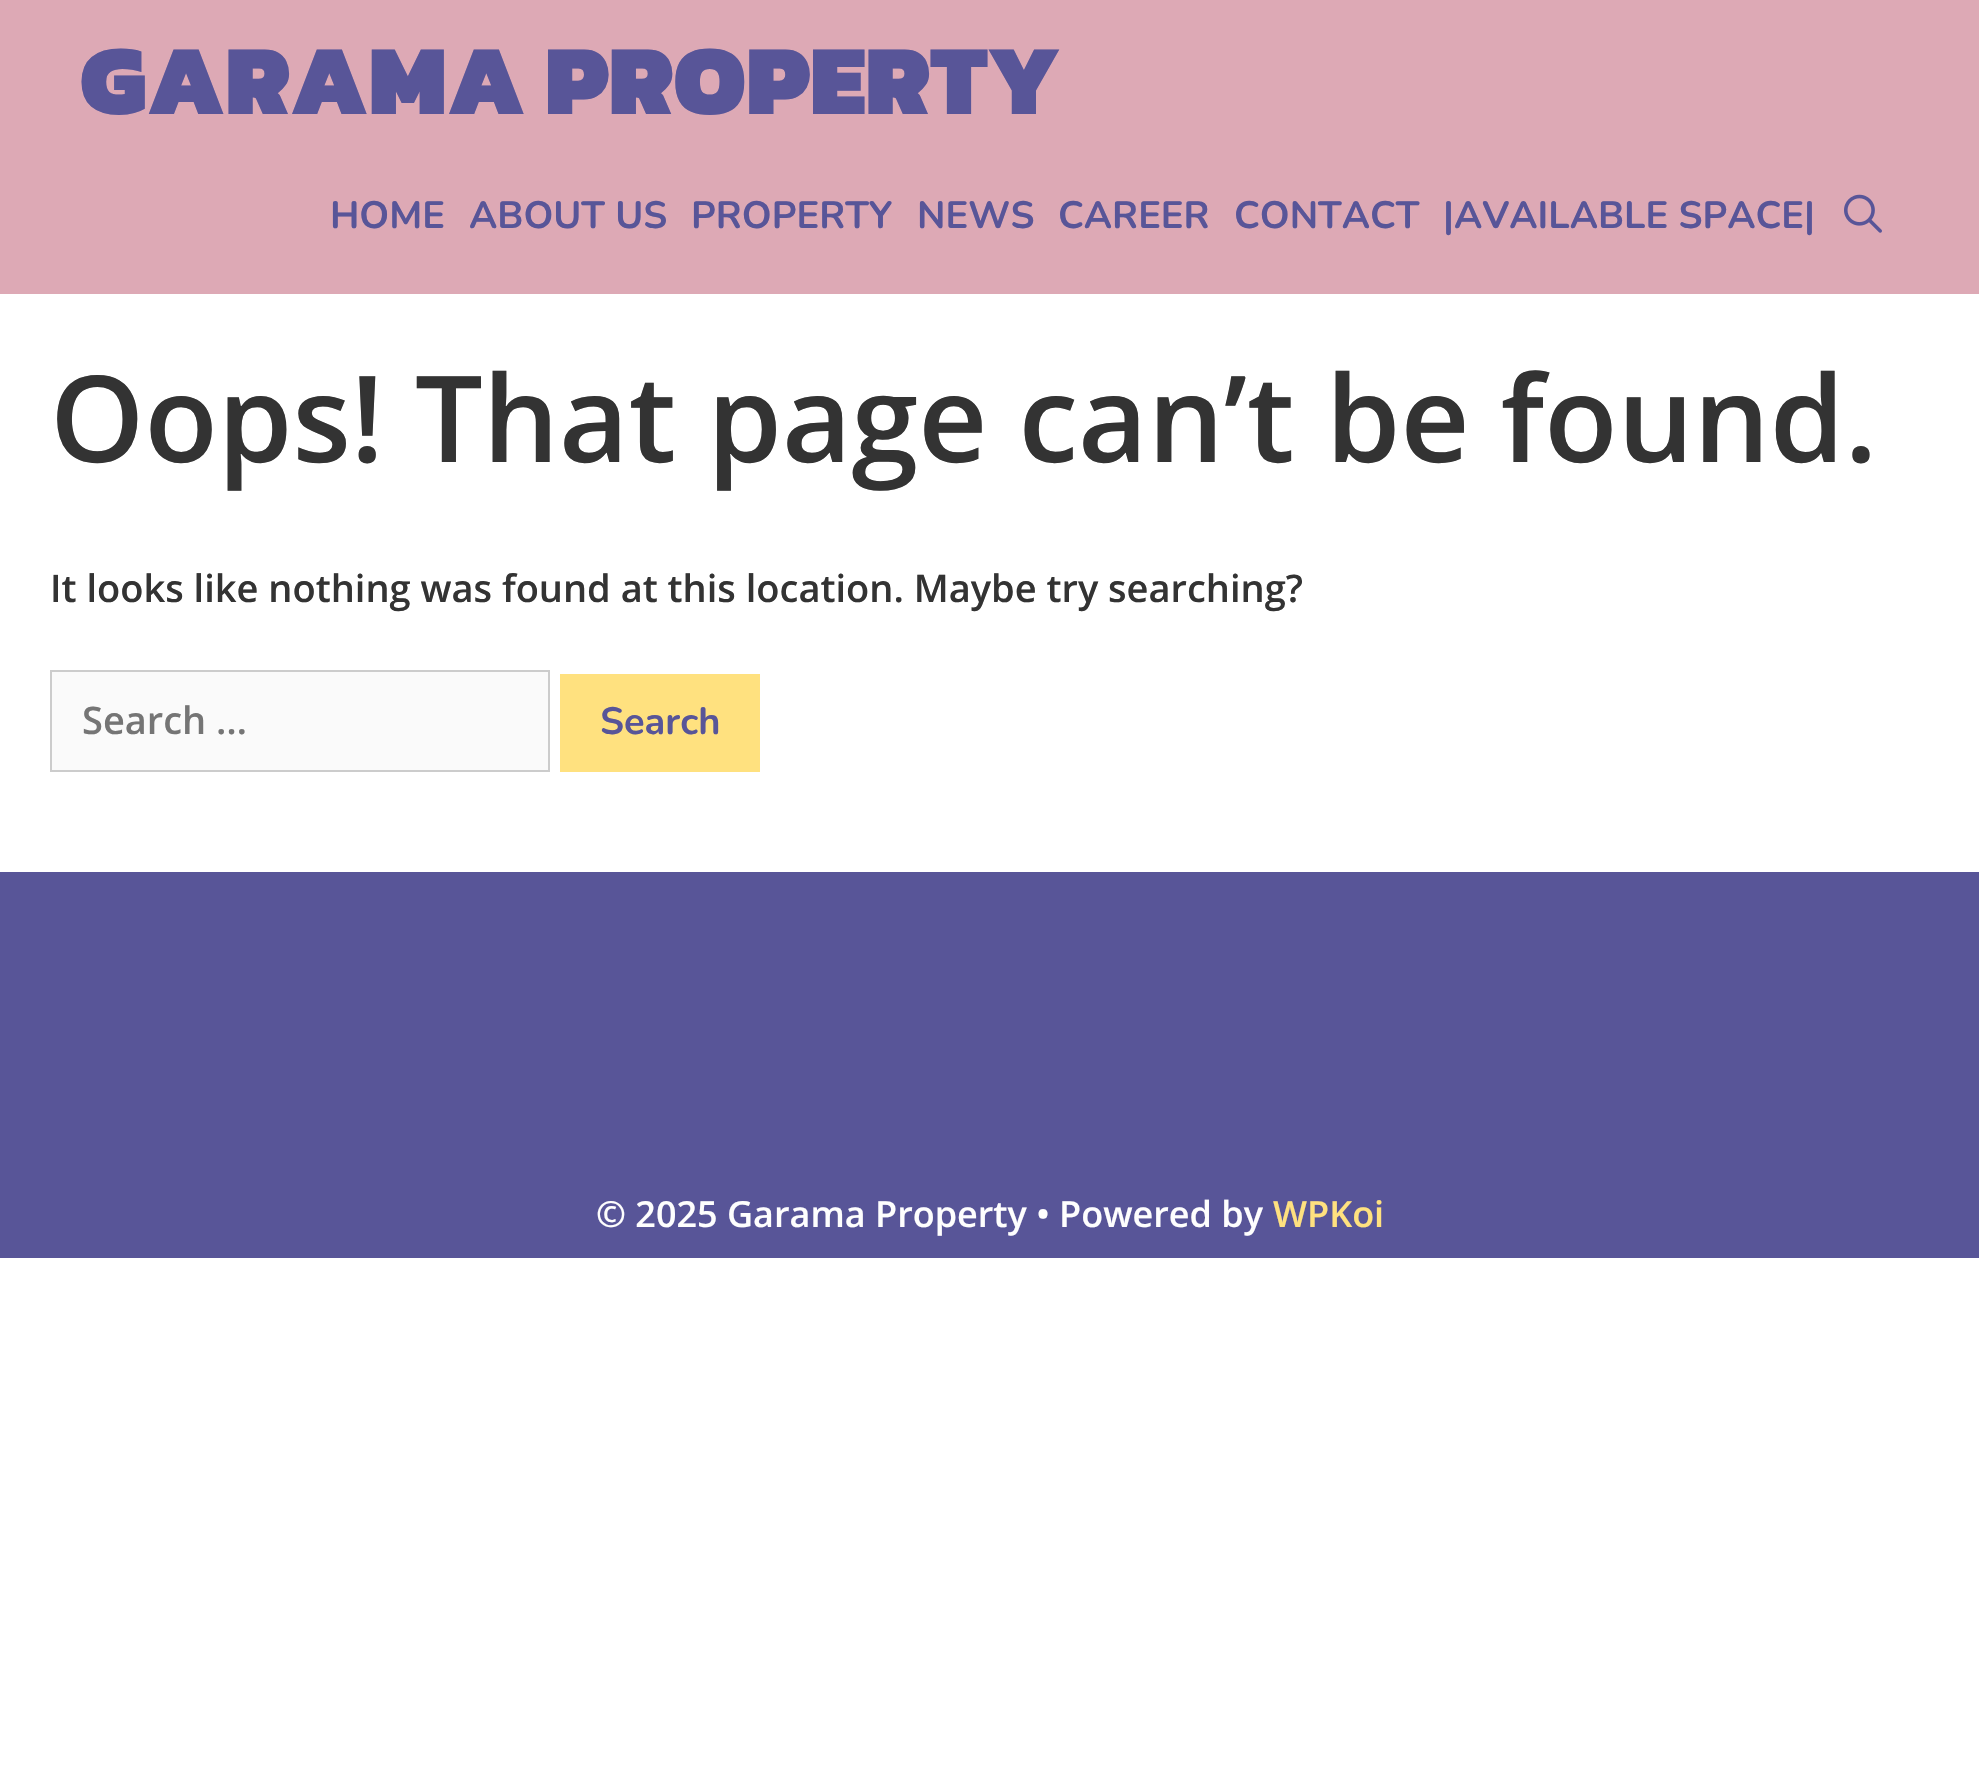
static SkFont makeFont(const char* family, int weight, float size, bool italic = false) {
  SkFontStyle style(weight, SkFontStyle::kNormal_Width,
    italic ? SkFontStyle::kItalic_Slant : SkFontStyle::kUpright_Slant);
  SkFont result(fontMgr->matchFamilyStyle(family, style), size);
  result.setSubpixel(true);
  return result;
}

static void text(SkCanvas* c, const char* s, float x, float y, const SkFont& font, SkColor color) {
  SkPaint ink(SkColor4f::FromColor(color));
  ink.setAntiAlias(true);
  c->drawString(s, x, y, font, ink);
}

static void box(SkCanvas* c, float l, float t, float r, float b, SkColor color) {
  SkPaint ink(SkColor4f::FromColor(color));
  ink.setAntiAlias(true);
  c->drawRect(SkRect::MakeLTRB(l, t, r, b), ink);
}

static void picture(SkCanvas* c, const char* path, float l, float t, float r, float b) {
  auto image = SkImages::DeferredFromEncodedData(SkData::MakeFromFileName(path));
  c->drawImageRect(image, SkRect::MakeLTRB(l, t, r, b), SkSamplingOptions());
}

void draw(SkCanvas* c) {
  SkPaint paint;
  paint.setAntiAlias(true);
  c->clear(0xffffffff);
  box(c, 0, 0, 1979, 294, 0xffdda9b5);
  SkFont face1 = makeFont("Kanit", 900, 100);
  text(c, "GARAMA PROPERTY", 80, 114, face1, 0xff585598);
  SkFont face2 = makeFont("Nunito", 700, 38);
  text(c, "HOME", 330, 228, face2, 0xff585598);
  text(c, "ABOUT US", 469, 228, face2, 0xff585598);
  text(c, "PROPERTY", 691, 228, face2, 0xff585598);
  text(c, "NEWS", 917, 228, face2, 0xff585598);
  text(c, "CAREER", 1058, 228, face2, 0xff585598);
  text(c, "CONTACT", 1234, 228, face2, 0xff585598);
  text(c, "|AVAILABLE SPACE|", 1443, 228, face2, 0xff585598);
  picture(c, "img_01.png", 1844, 194, 1882, 233);
  SkFont face3 = makeFont("Open Sans", 600, 120);
  text(c, "Oops! That page can’t be found.", 50, 462, face3, 0xff333333);
  SkFont face4 = makeFont("Open Sans", 600, 38);
  text(c, "It looks like nothing was found at this location. Maybe try searching?", 50, 602, face4, 0xff333333);
  paint.setColor(0xfffafafa);
  c->drawRect(SkRect::MakeLTRB(51, 671, 549, 771), paint);
  paint.setStyle(SkPaint::kStroke_Style);
  paint.setStrokeWidth(2);
  paint.setColor(0xffcccccc);
  c->drawRect(SkRect::MakeLTRB(51, 671, 549, 771), paint);
  text(c, "Search …", 82, 734, face4, 0xff757575);
  box(c, 560, 674, 760, 772, 0xffffe17f);
  text(c, "Search", 600, 734, face2, 0xff585598);
  box(c, 0, 872, 1979, 1258, 0xff585598);
  SkFont face5 = makeFont("Open Sans", 600, 36);
  text(c, "© 2025 Garama Property • Powered by", 596, 1227, face5, 0xfffefefe);
  text(c, "WPKoi", 1273, 1227, face5, 0xffffe17f);
}
